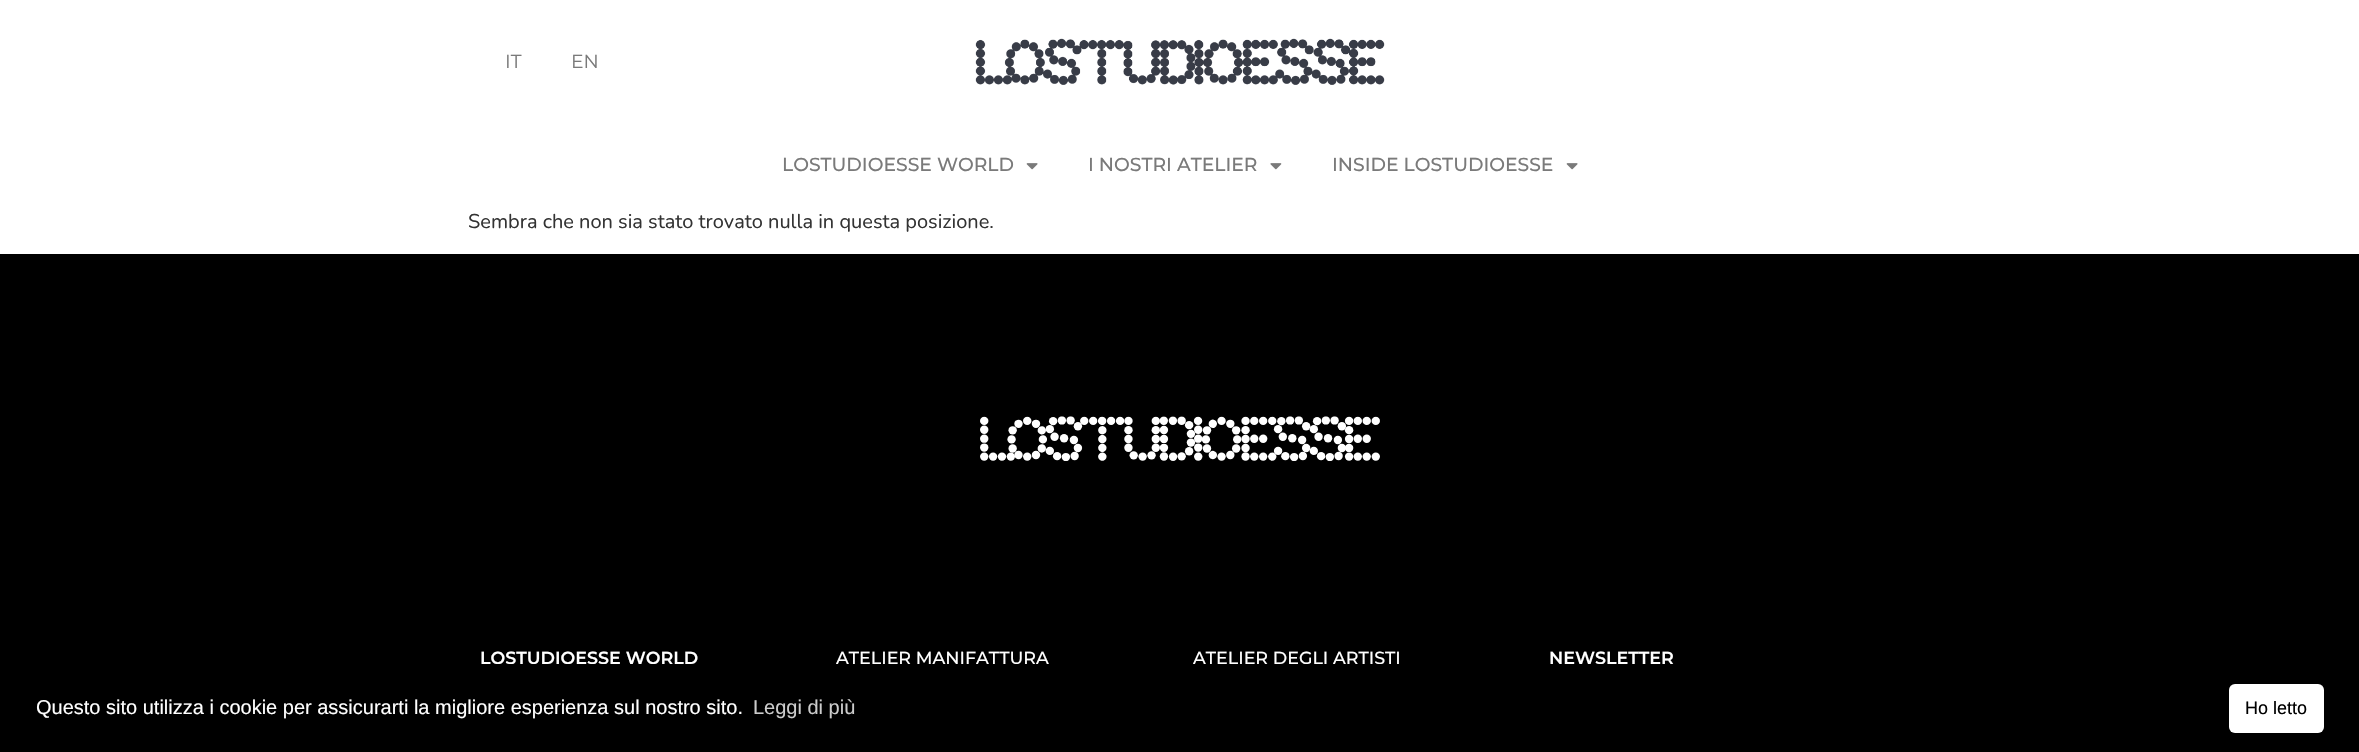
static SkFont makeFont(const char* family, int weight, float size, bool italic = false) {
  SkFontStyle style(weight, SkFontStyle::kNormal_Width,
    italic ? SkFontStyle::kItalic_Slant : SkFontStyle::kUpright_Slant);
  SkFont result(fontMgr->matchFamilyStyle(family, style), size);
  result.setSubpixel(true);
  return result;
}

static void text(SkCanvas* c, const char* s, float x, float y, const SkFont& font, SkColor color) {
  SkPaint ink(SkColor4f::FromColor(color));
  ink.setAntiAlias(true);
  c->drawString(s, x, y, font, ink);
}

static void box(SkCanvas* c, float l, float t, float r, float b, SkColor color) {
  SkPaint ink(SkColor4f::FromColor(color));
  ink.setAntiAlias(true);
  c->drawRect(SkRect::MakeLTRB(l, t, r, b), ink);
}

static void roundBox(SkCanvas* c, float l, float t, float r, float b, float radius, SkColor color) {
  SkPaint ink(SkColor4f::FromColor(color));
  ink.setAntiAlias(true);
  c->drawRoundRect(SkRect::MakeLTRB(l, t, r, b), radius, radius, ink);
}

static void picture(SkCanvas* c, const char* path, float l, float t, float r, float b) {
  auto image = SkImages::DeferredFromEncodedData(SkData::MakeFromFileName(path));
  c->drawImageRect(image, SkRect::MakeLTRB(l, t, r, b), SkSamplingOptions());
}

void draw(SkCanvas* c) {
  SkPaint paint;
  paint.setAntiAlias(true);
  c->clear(0xffffffff);
  SkFont face1 = makeFont("Montserrat", 400, 18.75f);
  text(c, "IT", 505, 68, face1, 0xff7a7a7a);
  text(c, "EN", 571, 68, face1, 0xff7a7a7a);
  picture(c, "img_01.png", 975, 38, 1385, 85);
  SkFont face2 = makeFont("Montserrat", 500, 18.75f);
  text(c, "LOSTUDIOESSE WORLD", 782, 171, face2, 0xff7a7a7a);
  picture(c, "img_02.png", 1026, 163, 1038, 170);
  text(c, "I NOSTRI ATELIER", 1088, 171, face2, 0xff7a7a7a);
  picture(c, "img_03.png", 1270, 163, 1282, 170);
  text(c, "INSIDE LOSTUDIOESSE", 1332, 171, face2, 0xff7a7a7a);
  picture(c, "img_02.png", 1566, 163, 1578, 170);
  SkFont face3 = makeFont("Nunito", 400, 20);
  text(c, "Sembra che non sia stato trovato nulla in questa posizione.", 468, 228, face3, 0xff333333);
  box(c, 0, 254, 2359, 664, 0xff000000);
  picture(c, "img_04.png", 980, 416, 1380, 461);
  SkFont face4 = makeFont("Montserrat", 600, 17.5f);
  text(c, "LOSTUDIOESSE WORLD", 480, 664, face4, 0xffffffff);
  SkFont face5 = makeFont("Montserrat", 500, 17.5f);
  text(c, "ATELIER MANIFATTURA", 836, 664, face5, 0xffffffff);
  text(c, "ATELIER DEGLI ARTISTI", 1193, 664, face5, 0xffffffff);
  text(c, "NEWSLETTER", 1549, 664, face4, 0xffffffff);
  box(c, 0, 664, 2359, 752, 0xff000000);
  SkFont face6 = makeFont("Liberation Sans", 400, 20);
  text(c, "Questo sito utilizza i cookie per assicurarti la migliore esperienza sul nostro sito.", 36, 714, face6, 0xffffffff);
  text(c, "Leggi di più", 753, 714, face6, 0xffcccccc);
  roundBox(c, 2229, 684, 2324, 733, 6, 0xffffffff);
  SkFont face7 = makeFont("Liberation Sans", 400, 18);
  text(c, "Ho letto", 2245, 714, face7, 0xff000000);
}
